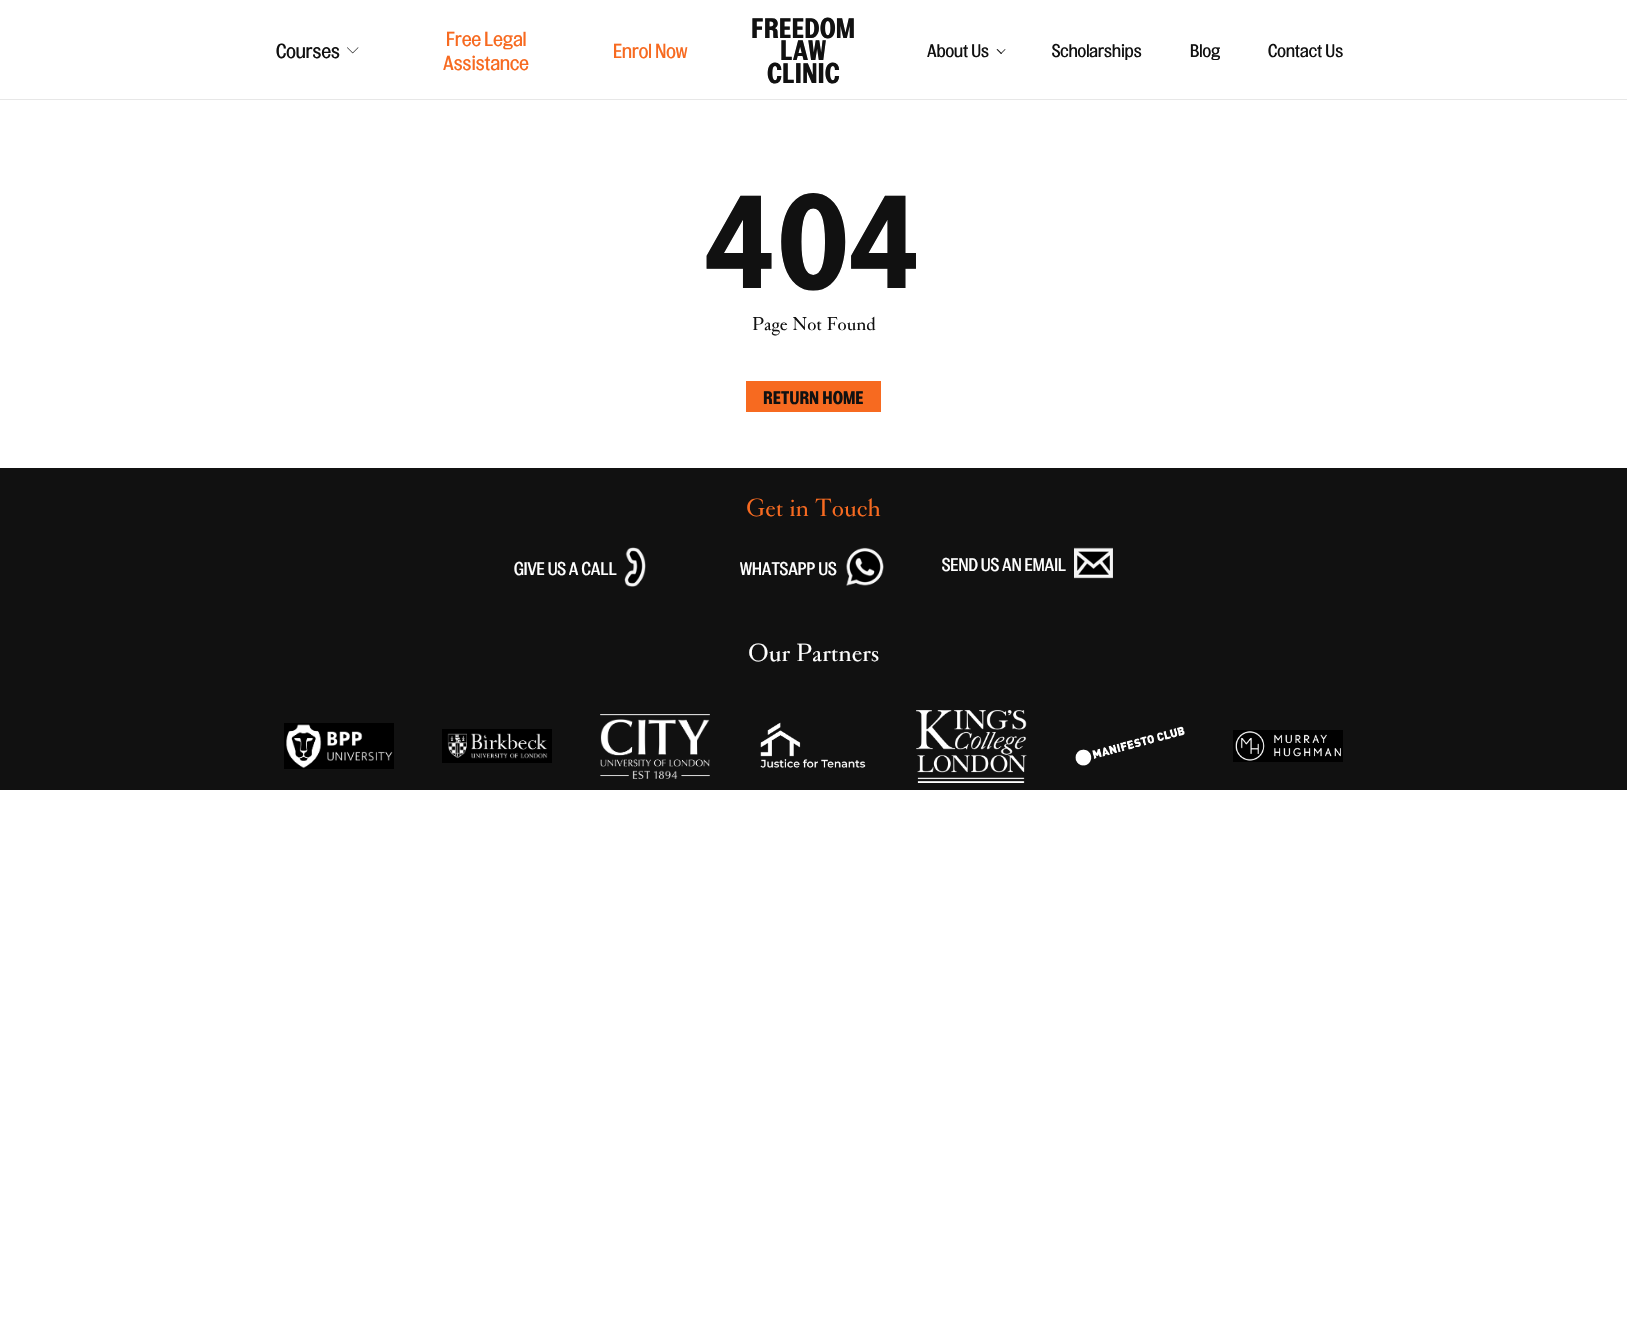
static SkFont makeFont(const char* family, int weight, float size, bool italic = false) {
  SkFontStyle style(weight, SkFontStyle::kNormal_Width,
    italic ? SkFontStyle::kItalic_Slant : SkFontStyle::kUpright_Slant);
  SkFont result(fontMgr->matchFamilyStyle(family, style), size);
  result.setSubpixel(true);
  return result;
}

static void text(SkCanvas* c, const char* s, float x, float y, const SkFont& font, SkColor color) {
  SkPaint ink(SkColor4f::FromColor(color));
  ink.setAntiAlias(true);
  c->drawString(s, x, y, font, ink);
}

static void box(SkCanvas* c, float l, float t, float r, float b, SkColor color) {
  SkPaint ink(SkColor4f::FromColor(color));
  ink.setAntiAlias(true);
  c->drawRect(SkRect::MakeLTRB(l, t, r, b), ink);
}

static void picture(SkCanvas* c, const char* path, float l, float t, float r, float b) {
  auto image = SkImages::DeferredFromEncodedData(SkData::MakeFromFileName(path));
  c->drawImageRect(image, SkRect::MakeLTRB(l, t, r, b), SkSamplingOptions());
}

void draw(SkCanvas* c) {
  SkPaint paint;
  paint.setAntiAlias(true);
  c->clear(0xffffffff);
  box(c, 0, 99, 1627, 100, 0xffe7e7e7);
  SkFont face1 = makeFont("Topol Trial", 400, 20);
  text(c, "Courses", 276, 58, face1, 0xff111111);
  picture(c, "img_01.png", 347, 47, 359, 54);
  text(c, "Free Legal", 446, 46, face1, 0xfff76a20);
  text(c, "Assistance", 443, 70, face1, 0xfff76a20);
  text(c, "Enrol Now", 613, 58, face1, 0xfff76a20);
  SkFont face2 = makeFont("Topol Trial", 700, 28);
  text(c, "FREEDOM", 751, 38, face2, 0xff111111);
  text(c, "LAW", 780, 60, face2, 0xff111111);
  text(c, "CLINIC", 767, 83, face2, 0xff111111);
  SkFont face3 = makeFont("Topol Trial", 400, 18);
  text(c, "About Us", 927, 57, face3, 0xff111111);
  paint.setColor(0xff111111);
  c->drawPath(SkPathBuilder().moveTo(1005.5f, 49.5f).lineTo(1001, 54).lineTo(1000.5f, 53.5f).lineTo(1005, 49).close().detach(), paint);
  c->drawPath(SkPathBuilder().moveTo(1002, 53.5f).lineTo(1001, 54).lineTo(996.5f, 49.5f).lineTo(997.5f, 49).close().detach(), paint);
  text(c, "Scholarships", 1052, 57, face3, 0xff111111);
  text(c, "Blog", 1190, 57, face3, 0xff111111);
  text(c, "Contact Us", 1268, 57, face3, 0xff111111);
  SkFont face4 = makeFont("Topol Trial", 700, 130);
  text(c, "404", 704, 288, face4, 0xff111111);
  SkFont face5 = makeFont("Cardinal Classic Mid", 500, 18);
  text(c, "Page Not Found", 752, 330, face5, 0xff111111);
  box(c, 746, 381, 881, 412, 0xfff76a20);
  SkFont face6 = makeFont("Topol Trial", 700, 18);
  text(c, "RETURN HOME", 763, 404, face6, 0xff111111);
  box(c, 0, 468, 1627, 790, 0xff111111);
  SkFont face7 = makeFont("Cardinal Classic Mid", 500, 24);
  text(c, "Get in Touch", 746, 516, face7, 0xfff76a20);
  text(c, "GIVE US A CALL", 514, 575, face3, 0xffffffff);
  picture(c, "img_02.png", 624, 547, 646, 587);
  text(c, "WHATSAPP US", 740, 575, face3, 0xffffffff);
  picture(c, "img_03.png", 846, 547, 884, 586);
  text(c, "SEND US AN EMAIL", 942, 571, face3, 0xffffffff);
  picture(c, "img_04.png", 1074, 547, 1113, 579);
  text(c, "Our Partners", 748, 661, face7, 0xffffffff);
  picture(c, "img_05.png", 284, 723, 394, 769);
  picture(c, "img_06.png", 442, 729, 552, 763);
  picture(c, "img_07.png", 600, 714, 710, 779);
  picture(c, "img_08.png", 760, 722, 866, 768);
  picture(c, "img_09.png", 916, 710, 1027, 783);
  picture(c, "img_10.png", 1075, 726, 1185, 766);
  picture(c, "img_11.png", 1233, 730, 1343, 762);
}
